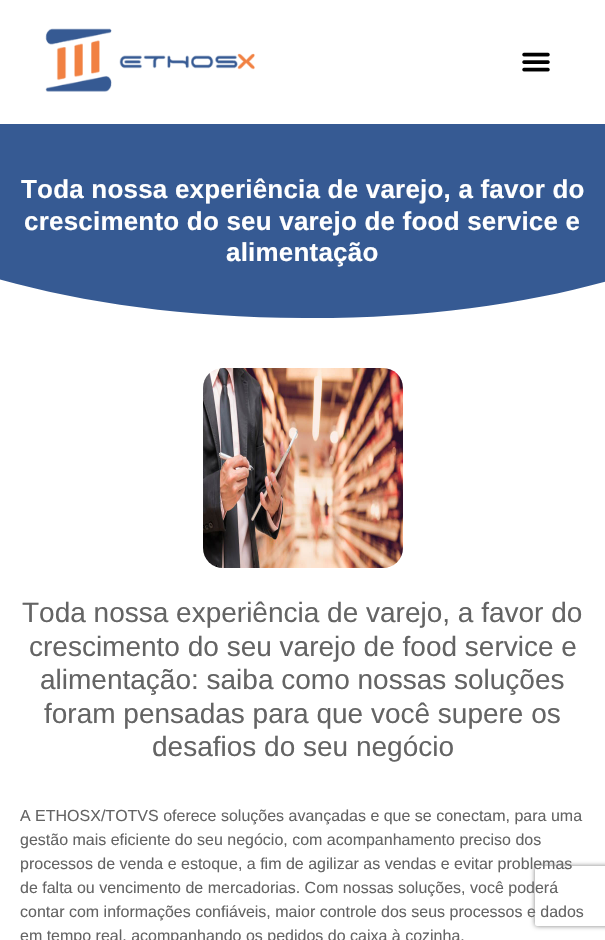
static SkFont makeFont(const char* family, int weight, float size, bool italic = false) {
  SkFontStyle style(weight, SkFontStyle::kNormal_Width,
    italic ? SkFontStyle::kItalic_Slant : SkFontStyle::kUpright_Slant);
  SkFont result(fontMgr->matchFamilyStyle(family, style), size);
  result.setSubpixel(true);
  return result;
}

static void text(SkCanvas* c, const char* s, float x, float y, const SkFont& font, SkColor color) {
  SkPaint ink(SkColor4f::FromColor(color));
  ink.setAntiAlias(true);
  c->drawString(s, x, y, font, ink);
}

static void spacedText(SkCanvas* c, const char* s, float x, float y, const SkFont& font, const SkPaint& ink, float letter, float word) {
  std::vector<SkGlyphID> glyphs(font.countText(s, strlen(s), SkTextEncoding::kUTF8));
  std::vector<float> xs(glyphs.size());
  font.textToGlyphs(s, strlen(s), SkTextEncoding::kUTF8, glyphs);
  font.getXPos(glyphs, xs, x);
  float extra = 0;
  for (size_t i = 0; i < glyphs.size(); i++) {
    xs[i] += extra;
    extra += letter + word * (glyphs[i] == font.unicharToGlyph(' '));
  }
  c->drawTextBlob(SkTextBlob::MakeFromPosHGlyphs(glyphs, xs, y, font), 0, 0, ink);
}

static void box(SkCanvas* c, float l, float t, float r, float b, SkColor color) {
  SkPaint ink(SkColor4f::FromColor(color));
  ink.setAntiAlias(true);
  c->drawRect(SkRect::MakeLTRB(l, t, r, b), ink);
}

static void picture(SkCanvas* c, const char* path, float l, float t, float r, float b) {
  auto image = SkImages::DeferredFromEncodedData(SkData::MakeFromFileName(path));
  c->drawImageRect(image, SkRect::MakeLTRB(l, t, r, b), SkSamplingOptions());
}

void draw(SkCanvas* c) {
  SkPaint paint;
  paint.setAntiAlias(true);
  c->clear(0xffffffff);
  picture(c, "img_01.png", 45, 28, 255, 92);
  picture(c, "img_02.png", 522, 52, 550, 72);
  box(c, 0, 124, 605, 318, 0xff365a93);
  SkFont face1 = makeFont("Liberation Sans", 700, 26);
  paint.setColor(0xffffffff);
  spacedText(c, "Toda nossa experiência de varejo, a favor do", 21, 198, face1, paint, 0.2f, 0);
  spacedText(c, "crescimento do seu varejo de food service e", 24, 230, face1, paint, 0.2f, 0);
  spacedText(c, "alimentação", 226, 261, face1, paint, 0.2f, 0);
  c->drawPath(SkPathBuilder().moveTo(303, 318).cubicTo(-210, 316, -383, 46, -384, -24).lineTo(-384, 329).lineTo(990, 329).lineTo(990, -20).cubicTo(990, 44, 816, 321, 303, 318).close().detach(), paint);
  picture(c, "img_03.png", 203, 368, 403, 568);
  SkFont face2 = makeFont("Liberation Sans", 400, 28);
  text(c, "Toda nossa experiência de varejo, a favor do", 22, 622, face2, 0xff646464);
  text(c, "crescimento do seu varejo de food service e", 29, 656, face2, 0xff646464);
  text(c, "alimentação: saiba como nossas soluções", 40, 689, face2, 0xff646464);
  text(c, "foram pensadas para que você supere os", 44, 723, face2, 0xff646464);
  text(c, "desafios do seu negócio", 152, 756, face2, 0xff646464);
  SkFont face3 = makeFont("Liberation Sans", 400, 16);
  text(c, "A ETHOSX/TOTVS oferece soluções avançadas e que se conectam, para uma", 20, 821, face3, 0xff646464);
  text(c, "gestão mais eficiente do seu negócio, com acompanhamento preciso dos", 20, 845, face3, 0xff646464);
  text(c, "processos de venda e estoque, a fim de agilizar as vendas e evitar problemas", 20, 869, face3, 0xff646464);
  text(c, "de falta ou vencimento de mercadorias. Com nossas soluções, você poderá", 20, 893, face3, 0xff646464);
  text(c, "contar com informações confiáveis, maior controle dos seus processos e dados", 20, 917, face3, 0xff646464);
  text(c, "em tempo real, acompanhando os pedidos do caixa à cozinha.", 20, 941, face3, 0xff646464);
  c->save();
  c->clipPath(SkPathBuilder(SkPathFillType::kEvenOdd).moveTo(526, 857).lineTo(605, 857).lineTo(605, 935).lineTo(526, 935).close().moveTo(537, 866).lineTo(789, 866).cubicTo(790, 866, 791, 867, 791, 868).lineTo(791, 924).cubicTo(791, 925, 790, 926, 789, 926).lineTo(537, 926).cubicTo(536, 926, 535, 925, 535, 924).lineTo(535, 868).cubicTo(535, 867, 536, 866, 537, 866).close().detach(), true);
  paint.setColor(0xff808080);
  paint.setMaskFilter(SkMaskFilter::MakeBlur(kNormal_SkBlurStyle, 2.5f));
  c->drawRoundRect(SkRect::MakeLTRB(535, 866, 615, 926), 2, 2, paint);
  paint.setMaskFilter(nullptr);
  c->restore();
}
